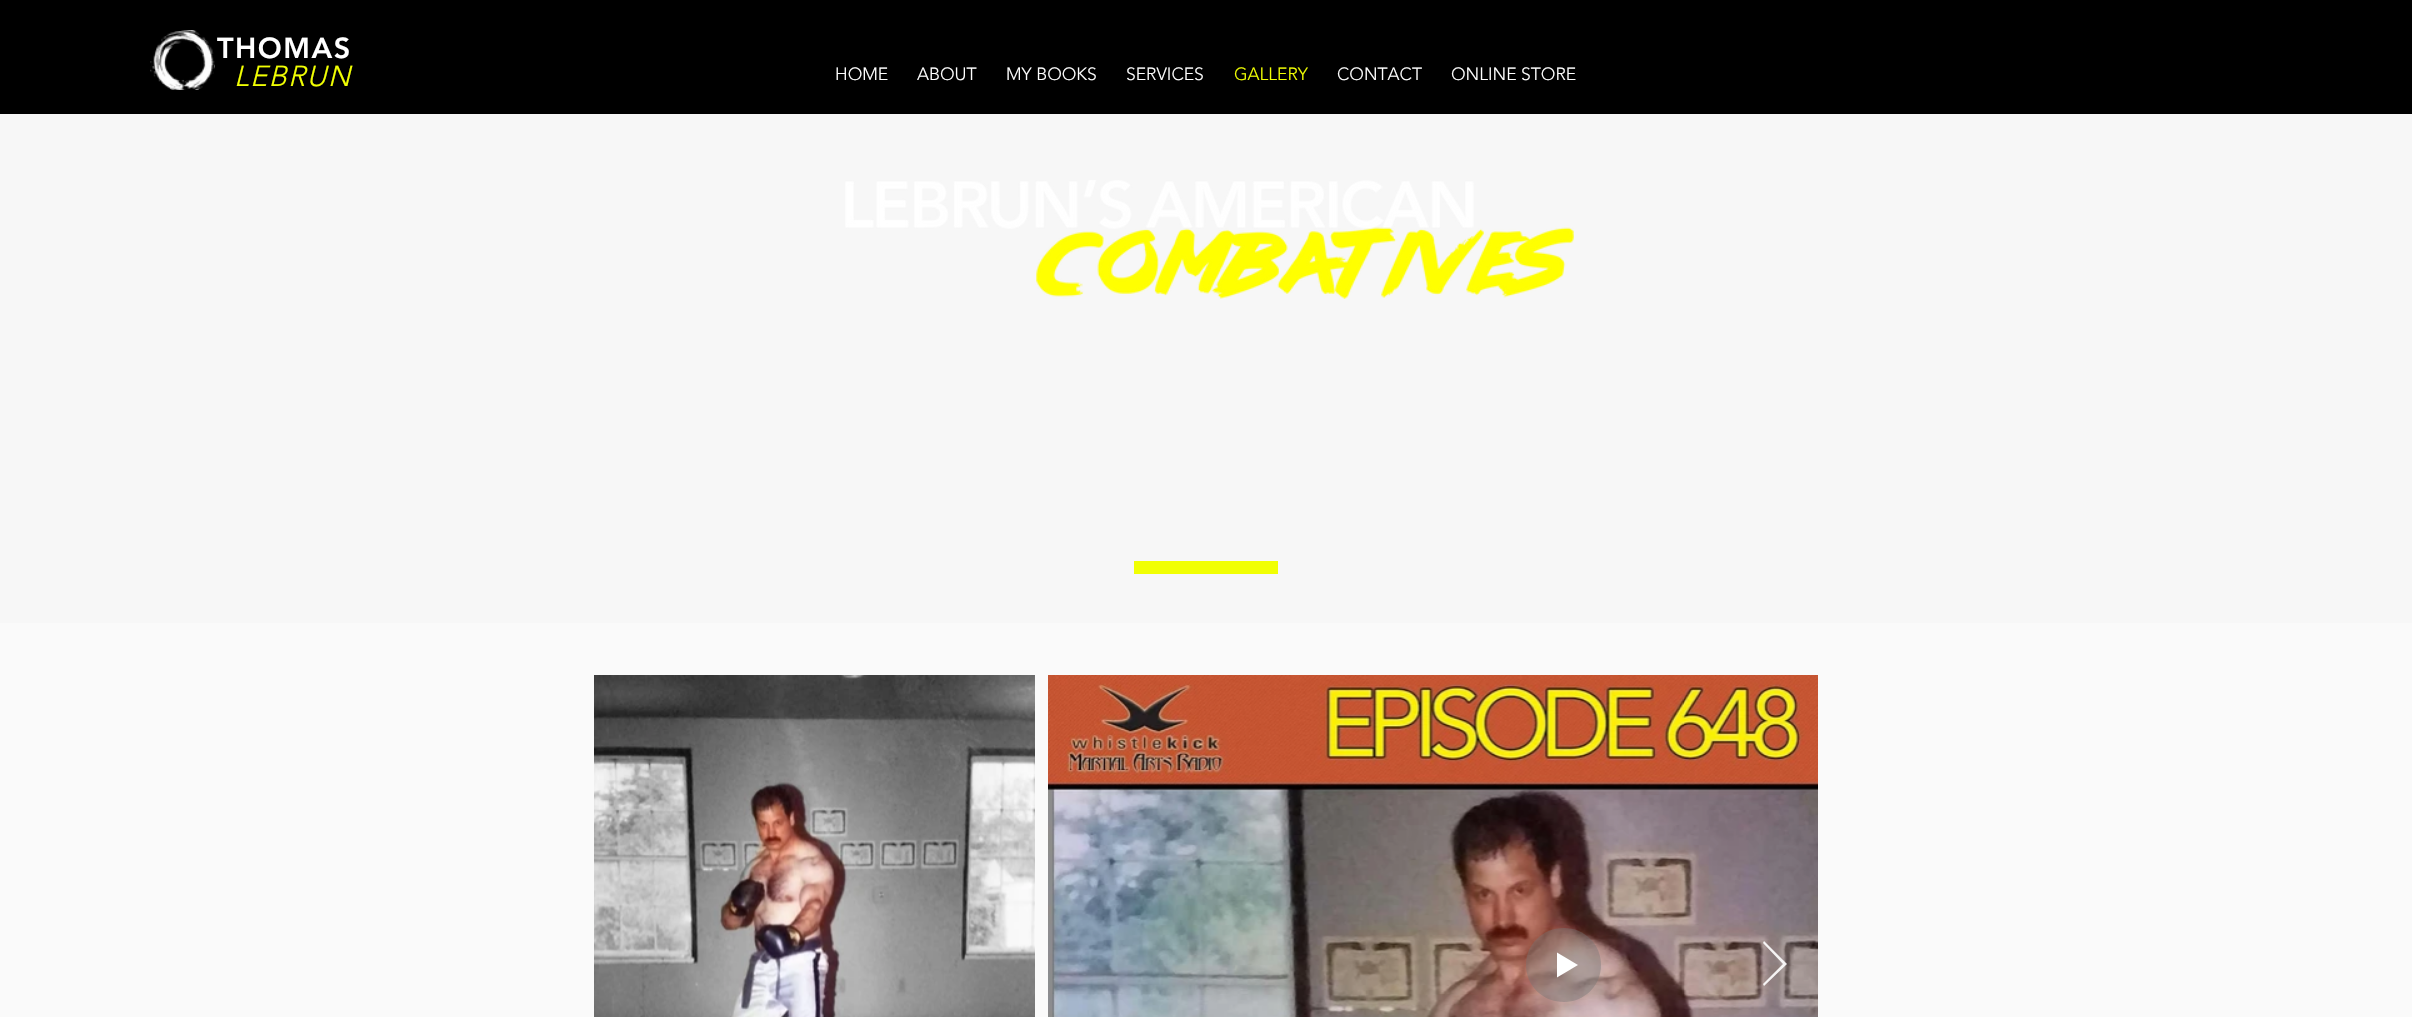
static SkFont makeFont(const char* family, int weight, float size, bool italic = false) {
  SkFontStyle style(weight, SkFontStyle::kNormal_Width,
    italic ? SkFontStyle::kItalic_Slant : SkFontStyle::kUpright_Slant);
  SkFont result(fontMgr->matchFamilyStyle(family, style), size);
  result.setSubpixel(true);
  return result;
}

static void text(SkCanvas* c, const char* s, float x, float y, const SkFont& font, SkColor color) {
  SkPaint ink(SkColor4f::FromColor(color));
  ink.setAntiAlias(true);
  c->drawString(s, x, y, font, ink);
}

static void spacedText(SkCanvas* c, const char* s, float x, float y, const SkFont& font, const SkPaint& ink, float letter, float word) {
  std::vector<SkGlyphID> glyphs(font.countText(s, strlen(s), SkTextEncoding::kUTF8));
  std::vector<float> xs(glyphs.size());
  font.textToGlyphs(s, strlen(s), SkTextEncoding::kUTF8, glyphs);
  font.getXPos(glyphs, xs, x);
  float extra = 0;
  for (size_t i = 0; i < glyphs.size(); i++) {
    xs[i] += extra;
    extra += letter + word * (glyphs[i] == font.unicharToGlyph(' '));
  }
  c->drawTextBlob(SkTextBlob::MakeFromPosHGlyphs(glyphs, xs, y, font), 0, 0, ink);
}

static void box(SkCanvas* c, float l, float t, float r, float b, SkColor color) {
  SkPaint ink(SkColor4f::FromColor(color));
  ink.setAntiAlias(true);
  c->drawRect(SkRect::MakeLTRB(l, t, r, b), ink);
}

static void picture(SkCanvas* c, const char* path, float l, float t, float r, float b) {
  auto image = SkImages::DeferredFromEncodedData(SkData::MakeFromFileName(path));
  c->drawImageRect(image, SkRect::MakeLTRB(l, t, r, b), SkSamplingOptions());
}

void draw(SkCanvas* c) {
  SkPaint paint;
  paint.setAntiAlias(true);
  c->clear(0xfff7f7f7);
  box(c, 0, 0, 2412, 114, 0xff000000);
  picture(c, "img_01.png", 150, 30, 215, 90);
  SkFont face1 = makeFont("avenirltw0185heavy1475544", 900, 28.75f);
  paint.setColor(0xffffffff);
  spacedText(c, "THOMAS", 217, 58, face1, paint, 1.5f, 0);
  SkFont face2 = makeFont("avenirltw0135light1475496", 300, 28.75f, true);
  paint.setColor(0xfff1ff03);
  spacedText(c, "LEBRUN", 234, 86, face2, paint, 1.5f, 0);
  SkFont face3 = makeFont("avenirltw0135light1475496", 300, 17.5f);
  text(c, "HOME", 835, 80, face3, 0xffffffff);
  text(c, "ABOUT", 917, 80, face3, 0xffffffff);
  text(c, "MY BOOKS", 1006, 80, face3, 0xffffffff);
  text(c, "SERVICES", 1126, 80, face3, 0xffffffff);
  text(c, "GALLERY", 1234, 80, face3, 0xfff1ff03);
  text(c, "CONTACT", 1337, 80, face3, 0xffffffff);
  text(c, "ONLINE STORE", 1451, 80, face3, 0xffffffff);
  picture(c, "img_02.png", 845, 180, 1574, 299);
  box(c, 1134, 561, 1278, 574, 0xfff1ff03);
  box(c, 0, 623, 2412, 1017, 0xfffafafa);
  picture(c, "img_03.png", 594, 675, 1035, 1017);
  picture(c, "img_04.png", 1048, 675, 1818, 1017);
  paint.setColor(0x6b757575);
  c->drawPath(SkPathBuilder(SkPathFillType::kEvenOdd).moveTo(1564, 928).cubicTo(1584, 928, 1601, 944, 1601, 965).cubicTo(1601, 986, 1584, 1002, 1564, 1002).cubicTo(1543, 1002, 1526, 986, 1526, 965).cubicTo(1526, 944, 1543, 928, 1564, 928).close().detach(), paint);
  paint.setColor(0xffffffff);
  c->drawPath(SkPathBuilder().moveTo(1578, 965).lineTo(1557, 977.5f).lineTo(1557, 952.5f).close().detach(), paint);
  paint.setColor(0xe6ffffff);
  c->drawPath(SkPathBuilder().moveTo(1763, 943).lineTo(1764, 941).lineTo(1787, 964).lineTo(1764, 986).lineTo(1763, 984).lineTo(1783, 964).close().detach(), paint);
}
